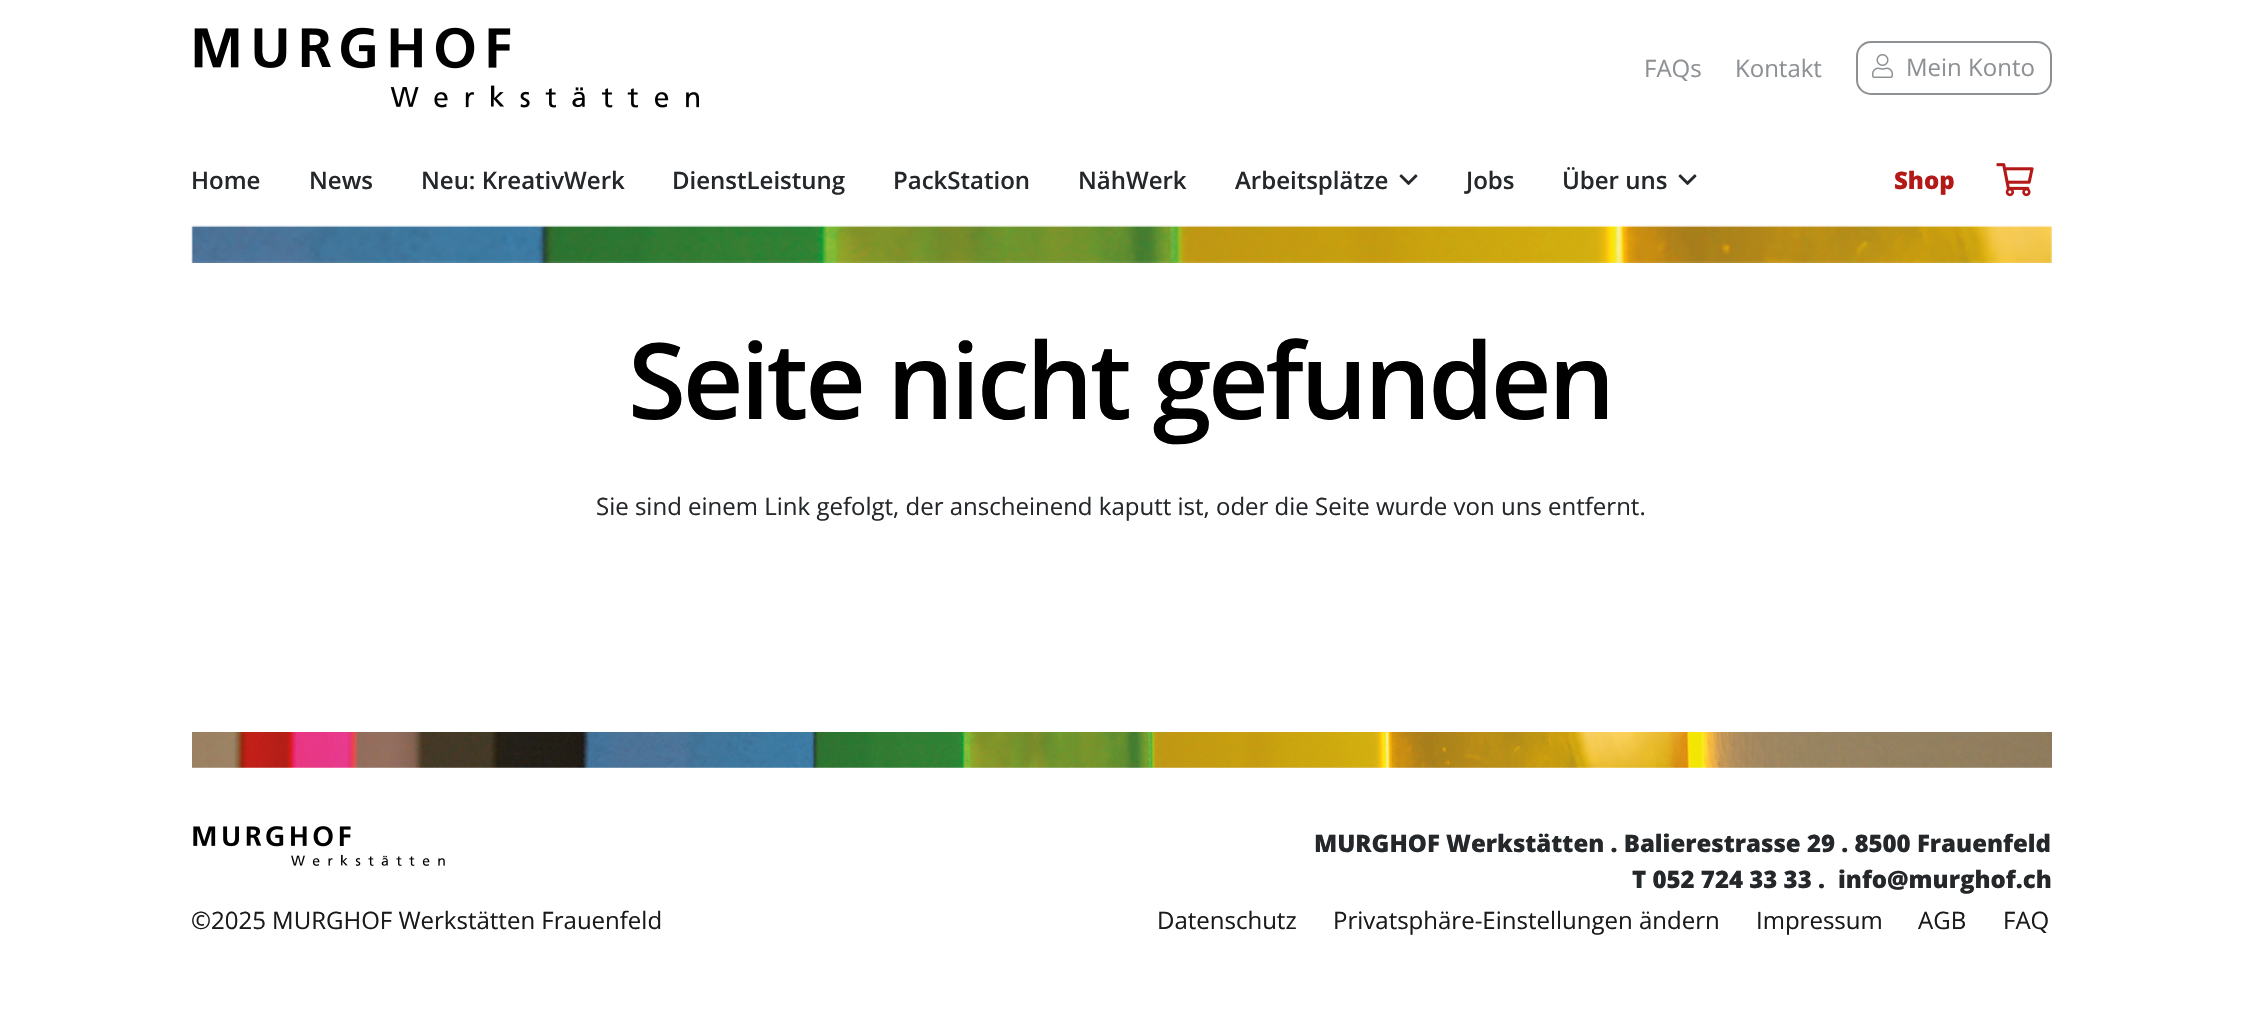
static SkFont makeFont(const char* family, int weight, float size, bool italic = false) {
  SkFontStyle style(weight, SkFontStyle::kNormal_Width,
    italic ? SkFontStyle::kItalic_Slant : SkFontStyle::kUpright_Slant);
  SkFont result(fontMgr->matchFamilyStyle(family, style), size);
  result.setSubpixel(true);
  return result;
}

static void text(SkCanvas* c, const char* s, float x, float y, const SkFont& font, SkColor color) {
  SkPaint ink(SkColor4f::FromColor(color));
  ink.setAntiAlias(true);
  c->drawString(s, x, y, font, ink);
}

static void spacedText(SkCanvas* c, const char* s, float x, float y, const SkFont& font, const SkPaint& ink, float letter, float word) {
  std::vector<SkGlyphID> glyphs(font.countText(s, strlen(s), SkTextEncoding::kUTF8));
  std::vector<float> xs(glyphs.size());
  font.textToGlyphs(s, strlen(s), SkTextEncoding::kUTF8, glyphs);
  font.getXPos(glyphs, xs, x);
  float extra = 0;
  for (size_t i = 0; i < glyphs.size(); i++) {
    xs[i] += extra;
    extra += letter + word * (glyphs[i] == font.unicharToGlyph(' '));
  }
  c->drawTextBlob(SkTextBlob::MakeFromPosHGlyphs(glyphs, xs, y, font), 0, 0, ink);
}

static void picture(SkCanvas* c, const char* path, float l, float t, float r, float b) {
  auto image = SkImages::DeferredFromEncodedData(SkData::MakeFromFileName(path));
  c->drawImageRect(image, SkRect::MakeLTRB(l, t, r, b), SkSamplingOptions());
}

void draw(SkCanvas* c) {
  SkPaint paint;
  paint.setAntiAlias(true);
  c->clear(0xffffffff);
  picture(c, "img_01.png", 194, 27, 699, 108);
  SkFont face1 = makeFont("Open Sans", 400, 24);
  text(c, "FAQs", 1644, 77, face1, 0xff8e9194);
  text(c, "Kontakt", 1735, 77, face1, 0xff8e9194);
  picture(c, "img_02.png", 1872, 54, 1893, 78);
  paint.setStyle(SkPaint::kStroke_Style);
  paint.setStrokeWidth(2);
  paint.setColor(0xff8e9194);
  c->drawRoundRect(SkRect::MakeLTRB(1857, 42, 2051, 94), 14, 14, paint);
  text(c, "Mein Konto", 1906, 76, face1, 0xff8e9194);
  SkFont face2 = makeFont("Open Sans", 600, 24);
  text(c, "Home", 191, 189, face2, 0xff25282b);
  text(c, "News", 309, 189, face2, 0xff25282b);
  text(c, "Neu: KreativWerk", 421, 189, face2, 0xff25282b);
  text(c, "DienstLeistung", 672, 189, face2, 0xff25282b);
  text(c, "PackStation", 893, 189, face2, 0xff25282b);
  text(c, "NähWerk", 1078, 189, face2, 0xff25282b);
  text(c, "Arbeitsplätze", 1235, 189, face2, 0xff25282b);
  picture(c, "img_03.png", 1399, 174, 1418, 185);
  text(c, "Jobs", 1466, 189, face2, 0xff25282b);
  text(c, "Über uns", 1562, 189, face2, 0xff25282b);
  picture(c, "img_03.png", 1678, 174, 1697, 185);
  SkFont face3 = makeFont("Open Sans", 800, 24);
  text(c, "Shop", 1894, 189, face3, 0xffb31917);
  picture(c, "img_04.png", 1996, 163, 2034, 197);
  picture(c, "img_05.png", 191, 225, 2052, 263);
  SkFont face4 = makeFont("Open Sans", 600, 105.5f);
  paint.setStyle(SkPaint::kFill_Style);
  paint.setColor(0xff000000);
  spacedText(c, "Seite nicht gefunden", 628, 419, face4, paint, -3.2f, 0);
  text(c, "Sie sind einem Link gefolgt, der anscheinend kaputt ist, oder die Seite wurde von uns entfernt.", 596, 515, face1, 0xff25282b);
  picture(c, "img_06.png", 192, 732, 2052, 768);
  picture(c, "img_07.png", 193, 826, 445, 866);
  text(c, "MURGHOF Werkstätten . Balierestrasse 29 . 8500 Frauenfeld", 1314, 852, face3, 0xff25282b);
  text(c, "T 052 724 33 33 .", 1632, 888, face3, 0xff25282b);
  text(c, "info@murghof.ch", 1838, 888, face3, 0xff25282b);
  text(c, "©2025 MURGHOF Werkstätten Frauenfeld", 191, 929, face1, 0xff1a1a1a);
  text(c, "Datenschutz", 1157, 929, face1, 0xff1a1a1a);
  text(c, "Privatsphäre-Einstellungen ändern", 1333, 929, face1, 0xff1a1a1a);
  text(c, "Impressum", 1756, 929, face1, 0xff1a1a1a);
  text(c, "AGB", 1918, 929, face1, 0xff1a1a1a);
  text(c, "FAQ", 2003, 929, face1, 0xff1a1a1a);
}
